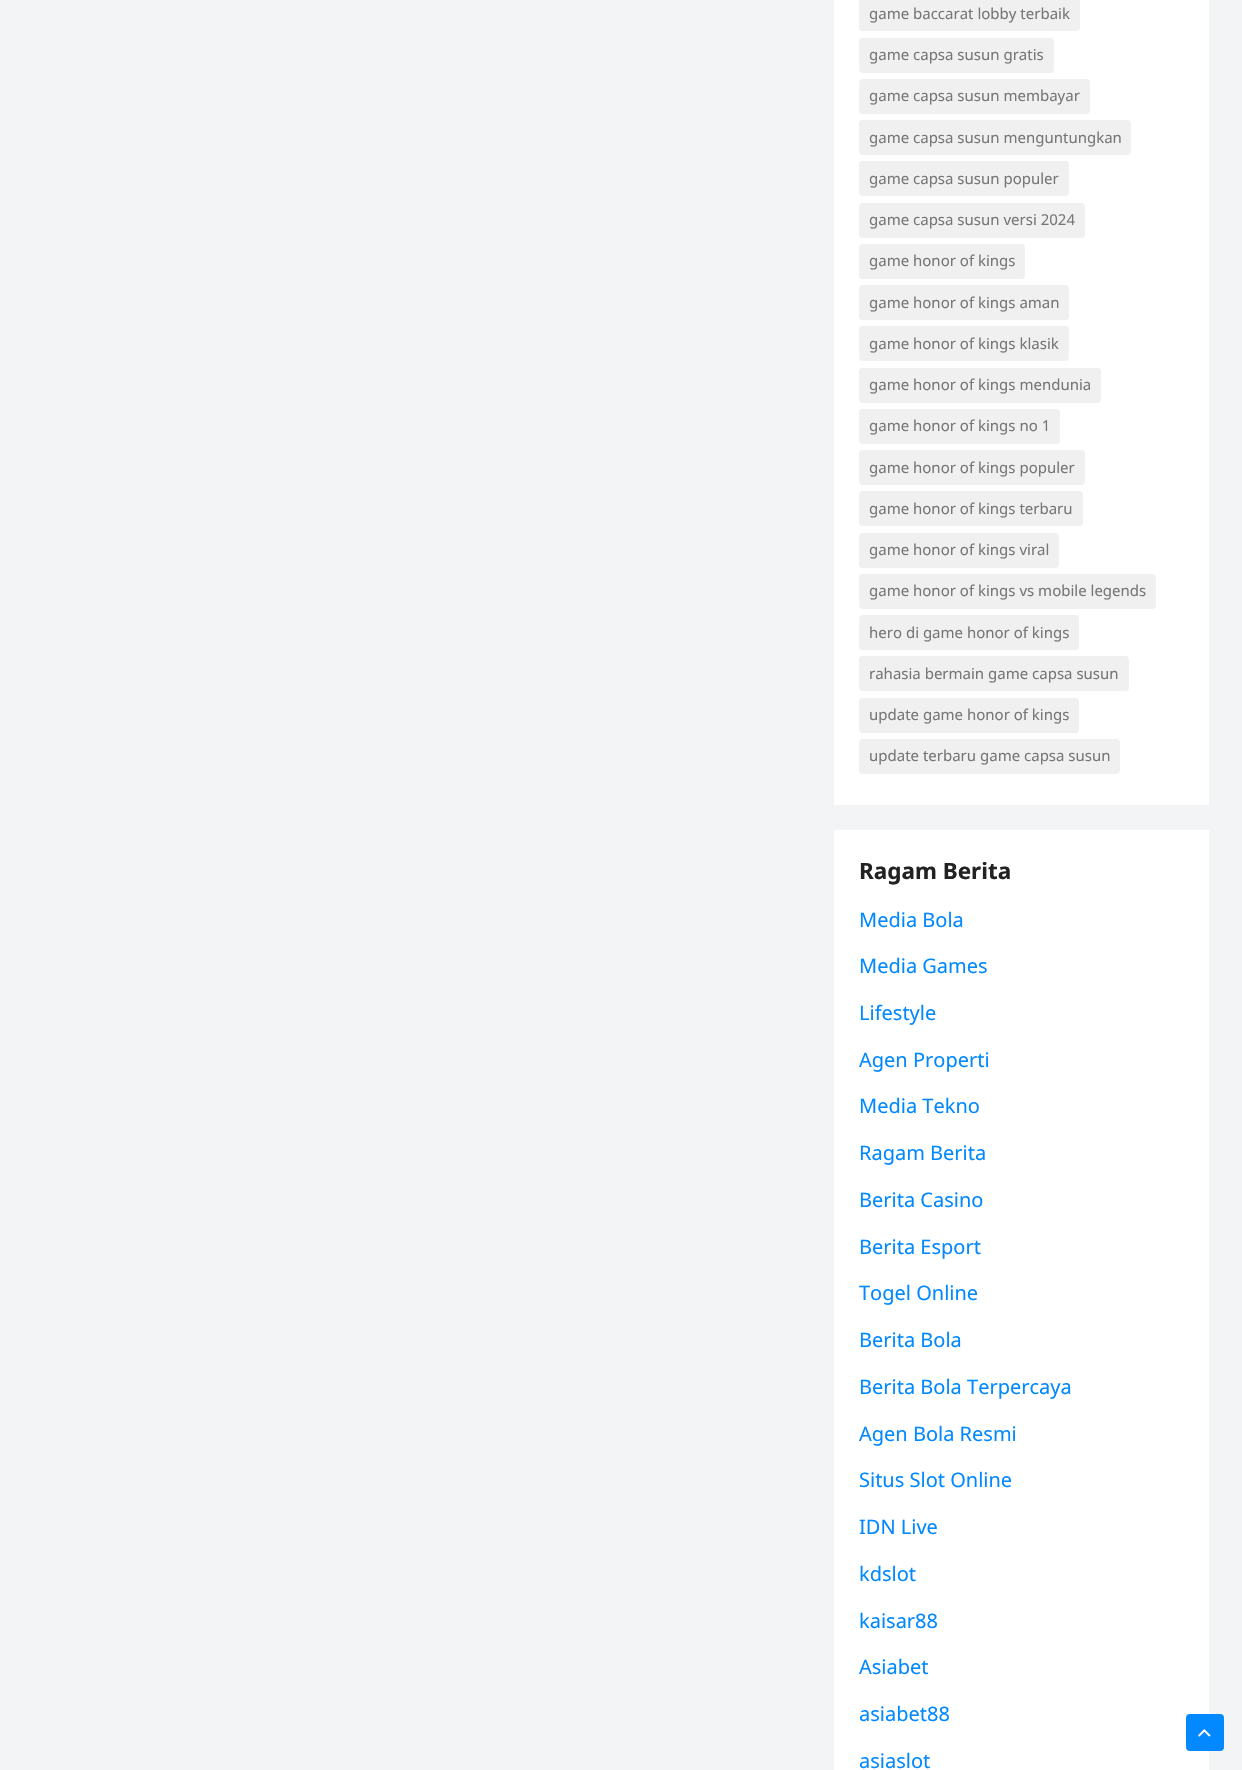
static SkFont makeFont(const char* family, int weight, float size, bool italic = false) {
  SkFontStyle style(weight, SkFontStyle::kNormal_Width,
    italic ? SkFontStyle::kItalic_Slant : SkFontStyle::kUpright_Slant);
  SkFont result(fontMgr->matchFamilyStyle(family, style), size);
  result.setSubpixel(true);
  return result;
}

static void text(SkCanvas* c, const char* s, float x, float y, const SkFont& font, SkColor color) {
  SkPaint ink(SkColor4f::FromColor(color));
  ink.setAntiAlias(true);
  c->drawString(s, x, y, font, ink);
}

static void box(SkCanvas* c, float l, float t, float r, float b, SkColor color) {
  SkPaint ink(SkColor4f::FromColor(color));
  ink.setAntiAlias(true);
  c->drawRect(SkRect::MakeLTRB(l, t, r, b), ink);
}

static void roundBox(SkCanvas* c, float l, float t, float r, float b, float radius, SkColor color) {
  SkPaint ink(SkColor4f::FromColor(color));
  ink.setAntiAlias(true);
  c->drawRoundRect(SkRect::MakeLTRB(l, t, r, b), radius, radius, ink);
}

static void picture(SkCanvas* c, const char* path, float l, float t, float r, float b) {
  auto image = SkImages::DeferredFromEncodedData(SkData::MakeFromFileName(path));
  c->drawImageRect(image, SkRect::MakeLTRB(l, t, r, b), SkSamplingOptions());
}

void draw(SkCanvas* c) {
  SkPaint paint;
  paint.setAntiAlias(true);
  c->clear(0xfff3f4f5);
  box(c, 834, 0, 1209, 805, 0xffffffff);
  roundBox(c, 859, -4, 1080, 31, 4, 0xfff0f0f0);
  SkFont face1 = makeFont("Noto Sans", 400, 15);
  text(c, "game baccarat lobby terbaik", 869, 19, face1, 0xff777777);
  roundBox(c, 859, 38, 1054, 73, 4, 0xfff0f0f0);
  text(c, "game capsa susun gratis", 869, 60, face1, 0xff777777);
  roundBox(c, 859, 79, 1090, 114, 4, 0xfff0f0f0);
  text(c, "game capsa susun membayar", 869, 101, face1, 0xff777777);
  roundBox(c, 859, 120, 1131, 155, 4, 0xfff0f0f0);
  text(c, "game capsa susun menguntungkan", 869, 143, face1, 0xff777777);
  roundBox(c, 859, 161, 1069, 196, 4, 0xfff0f0f0);
  text(c, "game capsa susun populer", 869, 184, face1, 0xff777777);
  roundBox(c, 859, 203, 1085, 238, 4, 0xfff0f0f0);
  text(c, "game capsa susun versi 2024", 869, 225, face1, 0xff777777);
  roundBox(c, 859, 244, 1025, 279, 4, 0xfff0f0f0);
  text(c, "game honor of kings", 869, 266, face1, 0xff777777);
  roundBox(c, 859, 285, 1069, 320, 4, 0xfff0f0f0);
  text(c, "game honor of kings aman", 869, 308, face1, 0xff777777);
  roundBox(c, 859, 326, 1069, 361, 4, 0xfff0f0f0);
  text(c, "game honor of kings klasik", 869, 349, face1, 0xff777777);
  roundBox(c, 859, 368, 1101, 403, 4, 0xfff0f0f0);
  text(c, "game honor of kings mendunia", 869, 390, face1, 0xff777777);
  roundBox(c, 859, 409, 1060, 444, 4, 0xfff0f0f0);
  text(c, "game honor of kings no 1", 869, 431, face1, 0xff777777);
  roundBox(c, 859, 450, 1085, 485, 4, 0xfff0f0f0);
  text(c, "game honor of kings populer", 869, 473, face1, 0xff777777);
  roundBox(c, 859, 491, 1083, 526, 4, 0xfff0f0f0);
  text(c, "game honor of kings terbaru", 869, 514, face1, 0xff777777);
  roundBox(c, 859, 533, 1059, 568, 4, 0xfff0f0f0);
  text(c, "game honor of kings viral", 869, 555, face1, 0xff777777);
  roundBox(c, 859, 574, 1156, 609, 4, 0xfff0f0f0);
  text(c, "game honor of kings vs mobile legends", 869, 596, face1, 0xff777777);
  roundBox(c, 859, 615, 1079, 650, 4, 0xfff0f0f0);
  text(c, "hero di game honor of kings", 869, 638, face1, 0xff777777);
  roundBox(c, 859, 656, 1129, 691, 4, 0xfff0f0f0);
  text(c, "rahasia bermain game capsa susun", 869, 679, face1, 0xff777777);
  roundBox(c, 859, 698, 1079, 733, 4, 0xfff0f0f0);
  text(c, "update game honor of kings", 869, 720, face1, 0xff777777);
  roundBox(c, 859, 739, 1120, 774, 4, 0xfff0f0f0);
  text(c, "update terbaru game capsa susun", 869, 761, face1, 0xff777777);
  box(c, 834, 830, 1209, 1770, 0xffffffff);
  SkFont face2 = makeFont("Noto Sans", 700, 22.5f);
  text(c, "Ragam Berita", 859, 879, face2, 0xff222222);
  SkFont face3 = makeFont("Noto Sans", 400, 20);
  text(c, "Media Bola", 859, 927, face3, 0xff0389ff);
  text(c, "Media Games", 859, 973, face3, 0xff0389ff);
  text(c, "Lifestyle", 859, 1020, face3, 0xff0389ff);
  text(c, "Agen Properti", 859, 1067, face3, 0xff0389ff);
  text(c, "Media Tekno", 859, 1113, face3, 0xff0389ff);
  text(c, "Ragam Berita", 859, 1160, face3, 0xff0389ff);
  text(c, "Berita Casino", 859, 1207, face3, 0xff0389ff);
  text(c, "Berita Esport", 859, 1254, face3, 0xff0389ff);
  text(c, "Togel Online", 859, 1300, face3, 0xff0389ff);
  text(c, "Berita Bola", 859, 1347, face3, 0xff0389ff);
  text(c, "Berita Bola Terpercaya", 859, 1394, face3, 0xff0389ff);
  text(c, "Agen Bola Resmi", 859, 1441, face3, 0xff0389ff);
  text(c, "Situs Slot Online", 859, 1487, face3, 0xff0389ff);
  text(c, "IDN Live", 859, 1534, face3, 0xff0389ff);
  text(c, "kdslot", 859, 1581, face3, 0xff0389ff);
  text(c, "kaisar88", 859, 1628, face3, 0xff0389ff);
  text(c, "Asiabet", 859, 1674, face3, 0xff0389ff);
  text(c, "asiabet88", 859, 1721, face3, 0xff0389ff);
  text(c, "asiaslot", 859, 1768, face3, 0xff0389ff);
  roundBox(c, 1186, 1714, 1224, 1751, 4, 0xff0389ff);
  picture(c, "img_01.png", 1198, 1729, 1211, 1737);
}
